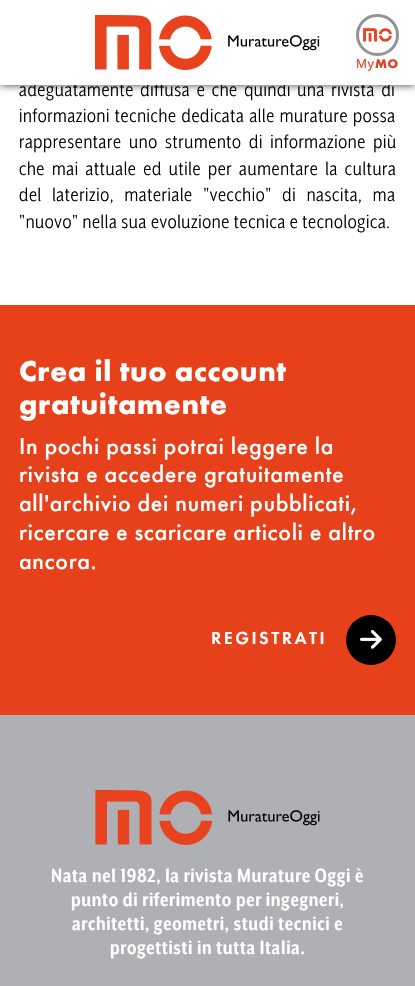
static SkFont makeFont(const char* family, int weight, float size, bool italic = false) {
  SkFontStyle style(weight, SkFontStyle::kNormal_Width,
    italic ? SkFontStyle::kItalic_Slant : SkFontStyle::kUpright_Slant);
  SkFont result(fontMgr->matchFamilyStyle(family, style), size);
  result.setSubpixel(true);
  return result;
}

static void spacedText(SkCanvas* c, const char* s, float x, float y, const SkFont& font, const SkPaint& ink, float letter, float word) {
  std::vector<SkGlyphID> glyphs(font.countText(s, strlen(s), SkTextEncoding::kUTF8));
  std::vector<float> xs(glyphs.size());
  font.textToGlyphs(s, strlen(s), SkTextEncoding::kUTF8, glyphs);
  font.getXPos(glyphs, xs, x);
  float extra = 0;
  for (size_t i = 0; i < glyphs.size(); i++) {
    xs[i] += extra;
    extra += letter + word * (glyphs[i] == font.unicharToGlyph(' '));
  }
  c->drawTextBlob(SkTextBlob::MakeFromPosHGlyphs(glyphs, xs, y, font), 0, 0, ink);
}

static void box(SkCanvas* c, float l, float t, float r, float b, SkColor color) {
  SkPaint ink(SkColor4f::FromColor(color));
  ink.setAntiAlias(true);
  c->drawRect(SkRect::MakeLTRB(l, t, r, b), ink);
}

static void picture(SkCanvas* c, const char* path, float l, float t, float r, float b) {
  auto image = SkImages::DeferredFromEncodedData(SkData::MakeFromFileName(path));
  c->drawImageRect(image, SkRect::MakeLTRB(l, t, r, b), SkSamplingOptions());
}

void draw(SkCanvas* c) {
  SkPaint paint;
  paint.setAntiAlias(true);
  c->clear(0xffffffff);
  paint.setColor(0xbf000000);
  paint.setMaskFilter(SkMaskFilter::MakeBlur(kNormal_SkBlurStyle, 4));
  c->drawRect(SkRect::MakeLTRB(0, 0, 415, 85), paint);
  paint.setMaskFilter(nullptr);
  SkFont face1 = makeFont("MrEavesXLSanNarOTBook", 400, 22);
  paint.setColor(0xff000000);
  spacedText(c, "adeguatamente diffusa e che quindi una rivista di", 19, 96, face1, paint, 0.62f, 2.5f);
  box(c, 0, 0, 415, 85, 0xffffffff);
  picture(c, "img_01.png", 95, 15, 320, 70);
  paint.setStyle(SkPaint::kStroke_Style);
  paint.setStrokeWidth(3);
  paint.setColor(0xff939393);
  c->drawRoundRect(SkRect::MakeLTRB(357.5f, 15.5f, 397.5f, 54.5f), 19.5f, 19.5f, paint);
  picture(c, "img_02.png", 363, 28, 392, 42);
  SkFont face2 = makeFont("Liberation Sans", 400, 13);
  paint.setStyle(SkPaint::kFill_Style);
  paint.setColor(0xffe7411c);
  spacedText(c, "My", 356, 68, face2, paint, 0.62f, 0);
  SkFont face3 = makeFont("Futura PT", 700, 13);
  spacedText(c, "MO", 375, 68, face3, paint, 0.62f, 0);
  paint.setColor(0xff000000);
  spacedText(c, "informazioni tecniche dedicata alle murature possa", 19, 122, face1, paint, 0.62f, 1);
  spacedText(c, "rappresentare uno strumento di informazione più", 19, 148, face1, paint, 0.62f, 3.5f);
  spacedText(c, "che mai attuale ed utile per aumentare la cultura", 19, 175, face1, paint, 0.62f, 3);
  spacedText(c, "del laterizio, materiale \"vecchio\" di nascita, ma", 19, 201, face1, paint, 0.62f, 6.5f);
  spacedText(c, "\"nuovo\" nella sua evoluzione tecnica e tecnologica.", 19, 228, face1, paint, 0.62f, 0);
  box(c, 0, 305, 415, 715, 0xffe7411c);
  SkFont face4 = makeFont("Futura PT", 700, 30);
  paint.setColor(0xffffffff);
  spacedText(c, "Crea il tuo account", 19, 381, face4, paint, 0.62f, 0);
  spacedText(c, "gratuitamente", 19, 414, face4, paint, 0.62f, 0);
  SkFont face5 = makeFont("Futura PT", 500, 24);
  spacedText(c, "In pochi passi potrai leggere la", 19, 454, face5, paint, 0.62f, 0);
  spacedText(c, "rivista e accedere gratuitamente", 19, 482, face5, paint, 0.62f, 0);
  spacedText(c, "all'archivio dei numeri pubblicati,", 19, 511, face5, paint, 0.62f, 0);
  spacedText(c, "ricercare e scaricare articoli e altro", 19, 540, face5, paint, 0.62f, 0);
  spacedText(c, "ancora.", 19, 569, face5, paint, 0.62f, 0);
  SkFont face6 = makeFont("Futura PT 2", 500, 18);
  spacedText(c, "REGISTRATI", 211, 644, face6, paint, 2.5f, 0);
  paint.setColor(0xff000000);
  c->drawCircle(371, 640, 25, paint);
  picture(c, "img_03.png", 360, 630, 382, 649);
  box(c, 0, 715, 415, 986, 0xffafb0b4);
  picture(c, "img_04.png", 95, 790, 320, 845);
  SkFont face7 = makeFont("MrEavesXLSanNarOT", 700, 22);
  paint.setColor(0xffffffff);
  spacedText(c, "Nata nel 1982, la rivista Murature Oggi è", 51, 882, face7, paint, 0.62f, 0);
  spacedText(c, "punto di riferimento per ingegneri,", 71, 906, face7, paint, 0.62f, 0);
  spacedText(c, "architetti, geometri, studi tecnici e", 72, 930, face7, paint, 0.62f, 0);
  spacedText(c, "progettisti in tutta Italia.", 110, 954, face7, paint, 0.62f, 0);
}
